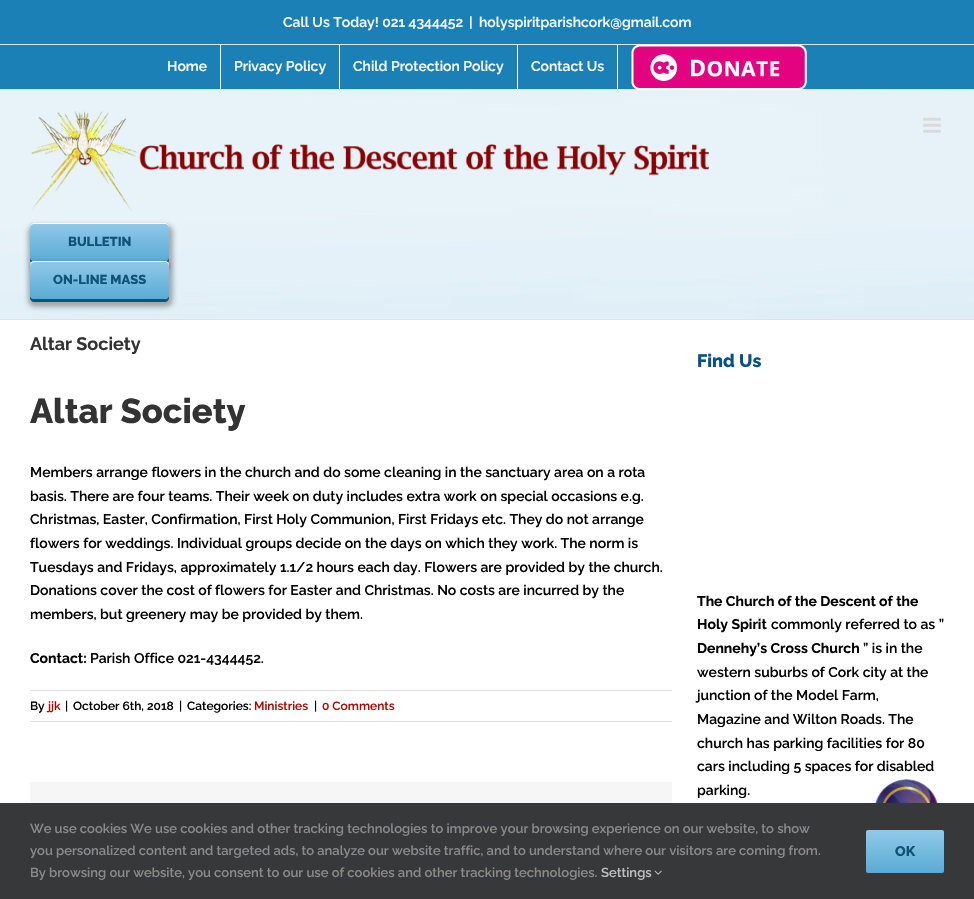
static SkFont makeFont(const char* family, int weight, float size, bool italic = false) {
  SkFontStyle style(weight, SkFontStyle::kNormal_Width,
    italic ? SkFontStyle::kItalic_Slant : SkFontStyle::kUpright_Slant);
  SkFont result(fontMgr->matchFamilyStyle(family, style), size);
  result.setSubpixel(true);
  return result;
}

static void text(SkCanvas* c, const char* s, float x, float y, const SkFont& font, SkColor color) {
  SkPaint ink(SkColor4f::FromColor(color));
  ink.setAntiAlias(true);
  c->drawString(s, x, y, font, ink);
}

static void box(SkCanvas* c, float l, float t, float r, float b, SkColor color) {
  SkPaint ink(SkColor4f::FromColor(color));
  ink.setAntiAlias(true);
  c->drawRect(SkRect::MakeLTRB(l, t, r, b), ink);
}

static void picture(SkCanvas* c, const char* path, float l, float t, float r, float b) {
  auto image = SkImages::DeferredFromEncodedData(SkData::MakeFromFileName(path));
  c->drawImageRect(image, SkRect::MakeLTRB(l, t, r, b), SkSamplingOptions());
}

void draw(SkCanvas* c) {
  SkPaint paint;
  paint.setAntiAlias(true);
  c->clear(0xffffffff);
  box(c, 0, 0, 974, 89, 0xff1a80b6);
  box(c, 0, 89, 974, 90, 0xffe1e1e1);
  box(c, 0, 44, 974, 45, 0xffe1e1e1);
  SkFont face1 = makeFont("Raleway", 600, 14);
  text(c, "Call Us Today! 021 4344452", 283, 27, face1, 0xffffffff);
  text(c, "|", 469, 27, face1, 0xffffffff);
  text(c, "holyspiritparishcork@gmail.com", 479, 27, face1, 0xffffffff);
  text(c, "Home", 167, 71, face1, 0xffffffff);
  box(c, 220, 45, 221, 89, 0xffffffff);
  text(c, "Privacy Policy", 234, 71, face1, 0xffffffff);
  box(c, 339, 45, 340, 89, 0xffffffff);
  text(c, "Child Protection Policy", 353, 71, face1, 0xffffffff);
  box(c, 517, 45, 518, 89, 0xffffffff);
  text(c, "Contact Us", 531, 71, face1, 0xffffffff);
  box(c, 617, 45, 618, 89, 0xffffffff);
  picture(c, "img_01.png", 631, 44, 807, 90);
  picture(c, "img_02.png", 0, 90, 974, 319);
  box(c, 0, 319, 974, 320, 0xffe1e1e1);
  picture(c, "img_03.png", 923, 117, 941, 133);
  picture(c, "img_04.png", 31, 111, 710, 212);
  paint.setColor(0x4d000000);
  paint.setMaskFilter(SkMaskFilter::MakeBlur(kNormal_SkBlurStyle, 2.5f));
  c->drawRoundRect(SkRect::MakeLTRB(28, 225, 173, 269), 7, 7, paint);
  paint.setMaskFilter(nullptr);
  paint.setColor(0xff105378);
  c->drawPath(SkPathBuilder().moveTo(30, 257).lineTo(30, 260).cubicTo(30, 262, 32, 264, 34, 264).lineTo(165, 264).cubicTo(167, 264, 169, 262, 169, 260).lineTo(169, 257).cubicTo(169, 259, 167, 261, 165, 261).lineTo(34, 261).cubicTo(32, 261, 30, 259, 30, 257).close().detach(), paint);
  {
    const SkColor colors[] = {0xff5aabd6, 0xff90c9e8};
    const float stops[] = {0, 1};
    const SkPoint ends[] = {{100, 261}, {100, 223}};
    paint.setShader(SkGradientShader::MakeLinear(ends, colors, stops, 2, SkTileMode::kClamp));
    paint.setAlpha(255);
  }
  c->drawRoundRect(SkRect::MakeLTRB(30, 223, 169, 261), 4, 4, paint);
  paint.setShader(nullptr);
  paint.setColor(0xffffffff);
  c->drawPath(SkPathBuilder().moveTo(34, 224).lineTo(165, 224).cubicTo(167, 224, 169, 226, 169, 228).lineTo(169, 227).cubicTo(169, 225, 167, 223, 165, 223).lineTo(34, 223).cubicTo(32, 223, 30, 225, 30, 227).lineTo(30, 228).cubicTo(30, 226, 32, 224, 34, 224).close().detach(), paint);
  SkFont face2 = makeFont("Raleway", 800, 13);
  text(c, "BULLETIN", 68, 246, face2, 0xff105378);
  paint.setColor(0x4d000000);
  paint.setMaskFilter(SkMaskFilter::MakeBlur(kNormal_SkBlurStyle, 2.5f));
  c->drawRoundRect(SkRect::MakeLTRB(28, 263, 173, 307), 7, 7, paint);
  paint.setMaskFilter(nullptr);
  paint.setColor(0xff105378);
  c->drawPath(SkPathBuilder().moveTo(30, 295).lineTo(30, 298).cubicTo(30, 300, 32, 302, 34, 302).lineTo(165, 302).cubicTo(167, 302, 169, 300, 169, 298).lineTo(169, 295).cubicTo(169, 297, 167, 299, 165, 299).lineTo(34, 299).cubicTo(32, 299, 30, 297, 30, 295).close().detach(), paint);
  {
    const SkColor colors[] = {0xff5aabd6, 0xff90c9e8};
    const float stops[] = {0, 1};
    const SkPoint ends[] = {{100, 299}, {100, 261}};
    paint.setShader(SkGradientShader::MakeLinear(ends, colors, stops, 2, SkTileMode::kClamp));
    paint.setAlpha(255);
  }
  c->drawRoundRect(SkRect::MakeLTRB(30, 261, 169, 299), 4, 4, paint);
  paint.setShader(nullptr);
  paint.setColor(0xffffffff);
  c->drawPath(SkPathBuilder().moveTo(34, 262).lineTo(165, 262).cubicTo(167, 262, 169, 264, 169, 266).lineTo(169, 265).cubicTo(169, 263, 167, 261, 165, 261).lineTo(34, 261).cubicTo(32, 261, 30, 263, 30, 265).lineTo(30, 266).cubicTo(30, 264, 32, 262, 34, 262).close().detach(), paint);
  text(c, "ON-LINE MASS", 53, 284, face2, 0xff105378);
  SkFont face3 = makeFont("Raleway", 700, 18);
  text(c, "Altar Society", 30, 350, face3, 0xff333333);
  SkFont face4 = makeFont("Raleway", 800, 34.5f);
  text(c, "Altar Society", 30, 423, face4, 0xff333333);
  text(c, "Members arrange flowers in the church and do some cleaning in the sanctuary area on a rota", 30, 477, face1, 0xff000000);
  text(c, "basis. There are four teams. Their week on duty includes extra work on special occasions e.g.", 30, 501, face1, 0xff000000);
  text(c, "Christmas, Easter, Confirmation, First Holy Communion, First Fridays etc. They do not arrange", 30, 524, face1, 0xff000000);
  text(c, "flowers for weddings. Individual groups decide on the days on which they work. The norm is", 30, 548, face1, 0xff000000);
  text(c, "Tuesdays and Fridays, approximately 1.1/2 hours each day. Flowers are provided by the church.", 30, 572, face1, 0xff000000);
  text(c, "Donations cover the cost of flowers for Easter and Christmas. No costs are incurred by the", 30, 595, face1, 0xff000000);
  text(c, "members, but greenery may be provided by them.", 30, 619, face1, 0xff000000);
  SkFont face5 = makeFont("Raleway", 700, 14);
  text(c, "Contact:", 30, 663, face5, 0xff000000);
  text(c, "Parish Office 021-4344452.", 90, 663, face1, 0xff000000);
  box(c, 30, 690, 672, 691, 0xffe0dede);
  box(c, 30, 721, 672, 722, 0xffe0dede);
  SkFont face6 = makeFont("Raleway", 600, 12);
  text(c, "By", 30, 710, face6, 0xff000000);
  text(c, "jjk", 48, 710, face6, 0xffa80800);
  text(c, "|", 65, 710, face6, 0xff000000);
  text(c, "October 6th, 2018", 73, 710, face6, 0xff000000);
  text(c, "|", 179, 710, face6, 0xff000000);
  text(c, "Categories:", 187, 710, face6, 0xff000000);
  text(c, "Ministries", 254, 710, face6, 0xffa80800);
  text(c, "|", 314, 710, face6, 0xff000000);
  text(c, "0 Comments", 322, 710, face6, 0xffa80800);
  box(c, 30, 782, 672, 803, 0xfff6f6f6);
  SkFont face7 = makeFont("Raleway", 800, 18);
  text(c, "Find Us", 697, 367, face7, 0xff04508a);
  text(c, "The Church of the Descent of the", 697, 606, face5, 0xff000000);
  text(c, "Holy Spirit", 697, 629, face5, 0xff000000);
  text(c, "commonly referred to as ”", 771, 629, face1, 0xff000000);
  text(c, "Dennehy’s Cross Church", 697, 653, face5, 0xff000000);
  text(c, "” is in the", 863, 653, face1, 0xff000000);
  text(c, "western suburbs of Cork city at the", 697, 677, face1, 0xff000000);
  text(c, "junction of the Model Farm,", 697, 700, face1, 0xff000000);
  text(c, "Magazine and Wilton Roads. The", 697, 724, face1, 0xff000000);
  text(c, "church has parking facilities for 80", 697, 748, face1, 0xff000000);
  text(c, "cars including 5 spaces for disabled", 697, 771, face1, 0xff000000);
  text(c, "parking.", 697, 795, face1, 0xff000000);
  picture(c, "img_05.png", 875, 779, 938, 803);
  box(c, 0, 803, 974, 899, 0xff363839);
  SkFont face8 = makeFont("Raleway", 600, 13);
  text(c, "We use cookies We use cookies and other tracking technologies to improve your browsing experience on our website, to show", 30, 833, face8, 0xff8c8989);
  text(c, "you personalized content and targeted ads, to analyze our website traffic, and to understand where our visitors are coming from.", 30, 855, face8, 0xff8c8989);
  text(c, "By browsing our website, you consent to our use of cookies and other tracking technologies.", 30, 877, face8, 0xff8c8989);
  text(c, "Settings", 601, 877, face8, 0xffbfbfbf);
  picture(c, "img_06.png", 654, 870, 662, 875);
  {
    const SkColor colors[] = {0xff5aabd6, 0xff90c9e8};
    const float stops[] = {0, 1};
    const SkPoint ends[] = {{905, 873}, {905, 830}};
    paint.setShader(SkGradientShader::MakeLinear(ends, colors, stops, 2, SkTileMode::kClamp));
    paint.setAlpha(255);
  }
  c->drawRoundRect(SkRect::MakeLTRB(866, 830, 944, 873), 2, 2, paint);
  SkFont face9 = makeFont("Raleway", 800, 14);
  text(c, "OK", 895, 856, face9, 0xff105378);
}
